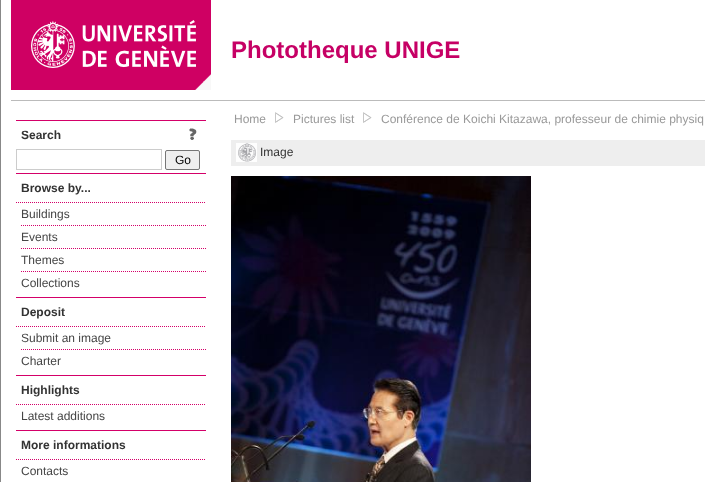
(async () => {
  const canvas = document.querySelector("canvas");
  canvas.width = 705;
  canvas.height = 482;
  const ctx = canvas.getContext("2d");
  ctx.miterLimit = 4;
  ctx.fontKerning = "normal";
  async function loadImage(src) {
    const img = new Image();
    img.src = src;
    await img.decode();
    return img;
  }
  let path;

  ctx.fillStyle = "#ffffff";
  ctx.fillRect(0, 0, 705, 482);
  ctx.fillStyle = "#888888";
  ctx.fillRect(0, 0, 1, 482);
  ctx.fillStyle = "#cf0063";
  ctx.fillRect(11, 0, 200, 90);
  ctx.drawImage(await loadImage("img/1.png"), 195, 74, 16, 16);
  ctx.drawImage(await loadImage("img/2.png"), 31, 20, 165, 48);
  ctx.fillStyle = "#bbbbbb";
  ctx.fillRect(11, 100, 694, 1);
  ctx.fillStyle = "#d40069";
  ctx.fillRect(16, 120, 190, 1);
  ctx.drawImage(await loadImage("img/3.png"), 189, 128, 8, 12);
  ctx.strokeStyle = "#cccccc";
  ctx.strokeRect(16.5, 149.5, 145, 20);
  ctx.fillStyle = "#efefef";
  ctx.beginPath();
  ctx.roundRect(165.5, 150.5, 34, 19, 1.5);
  ctx.fill();
  ctx.strokeStyle = "#767676";
  ctx.stroke();
  ctx.fillStyle = "#d40069";
  ctx.fillRect(16, 173, 190, 1);
  path = new Path2D("M16 202.5H206");
  ctx.strokeStyle = "#d40069";
  ctx.setLineDash([1, 1]);
  ctx.stroke(path);
  path = new Path2D("M21 225.5H206");
  ctx.stroke(path);
  path = new Path2D("M21 248.5H206");
  ctx.stroke(path);
  path = new Path2D("M21 271.5H206");
  ctx.stroke(path);
  ctx.fillRect(16, 297, 190, 1);
  path = new Path2D("M16 326.5H206");
  ctx.stroke(path);
  path = new Path2D("M21 349.5H206");
  ctx.stroke(path);
  ctx.fillRect(16, 375, 190, 1);
  path = new Path2D("M16 404.5H206");
  ctx.stroke(path);
  ctx.fillRect(16, 430, 190, 1);
  path = new Path2D("M16 459.5H206");
  ctx.stroke(path);
  ctx.drawImage(await loadImage("img/4.png"), 275, 112, 9, 11);
  ctx.drawImage(await loadImage("img/4.png"), 363, 112, 9, 11);
  ctx.fillStyle = "#eeeeee";
  ctx.fillRect(231, 140, 474, 26);
  ctx.drawImage(await loadImage("img/5.png"), 236, 143, 21, 19);
  ctx.drawImage(await loadImage("img/6.png"), 231, 176, 300, 306);
  ctx.font = "bold 24px Liberation Sans";
  ctx.fillStyle = "#c60065";
  ctx.fillText("Phototheque UNIGE", 231, 58);
  ctx.font = "bold 12px Liberation Sans";
  ctx.fillStyle = "#333333";
  ctx.fillText("Search", 21, 139);
  ctx.font = "12px Liberation Sans";
  ctx.fillStyle = "#000000";
  ctx.fillText("Go", 175, 164);
  ctx.font = "bold 12px Liberation Sans";
  ctx.fillStyle = "#333333";
  ctx.fillText("Browse by...", 21, 192);
  ctx.font = "12px Liberation Sans";
  ctx.fillStyle = "#454545";
  for (const [text, x, y] of [
    ["Buildings", 21, 218],
    ["Events", 21, 241],
    ["Themes", 21, 264],
    ["Collections", 21, 287],
  ]) {
    ctx.fillText(text, x, y);
  }
  ctx.font = "bold 12px Liberation Sans";
  ctx.fillStyle = "#333333";
  ctx.fillText("Deposit", 21, 316);
  ctx.font = "12px Liberation Sans";
  ctx.fillStyle = "#454545";
  ctx.fillText("Submit an image", 21, 342);
  ctx.fillText("Charter", 21, 365);
  ctx.font = "bold 12px Liberation Sans";
  ctx.fillStyle = "#333333";
  ctx.fillText("Highlights", 21, 394);
  ctx.font = "12px Liberation Sans";
  ctx.fillStyle = "#454545";
  ctx.fillText("Latest additions", 21, 420);
  ctx.font = "bold 12px Liberation Sans";
  ctx.fillStyle = "#333333";
  ctx.fillText("More informations", 21, 449);
  ctx.font = "12px Liberation Sans";
  ctx.fillStyle = "#454545";
  ctx.fillText("Contacts", 21, 475);
  ctx.fillStyle = "#999999";
  for (const [text, x, y] of [
    ["Home", 234, 123],
    ["Pictures list", 293, 123],
    ["Conférence de Koichi Kitazawa, professeur de chimie physiq", 381, 123],
  ]) {
    ctx.fillText(text, x, y);
  }
  ctx.fillStyle = "#333333";
  ctx.fillText("Image", 260, 156);
})();
